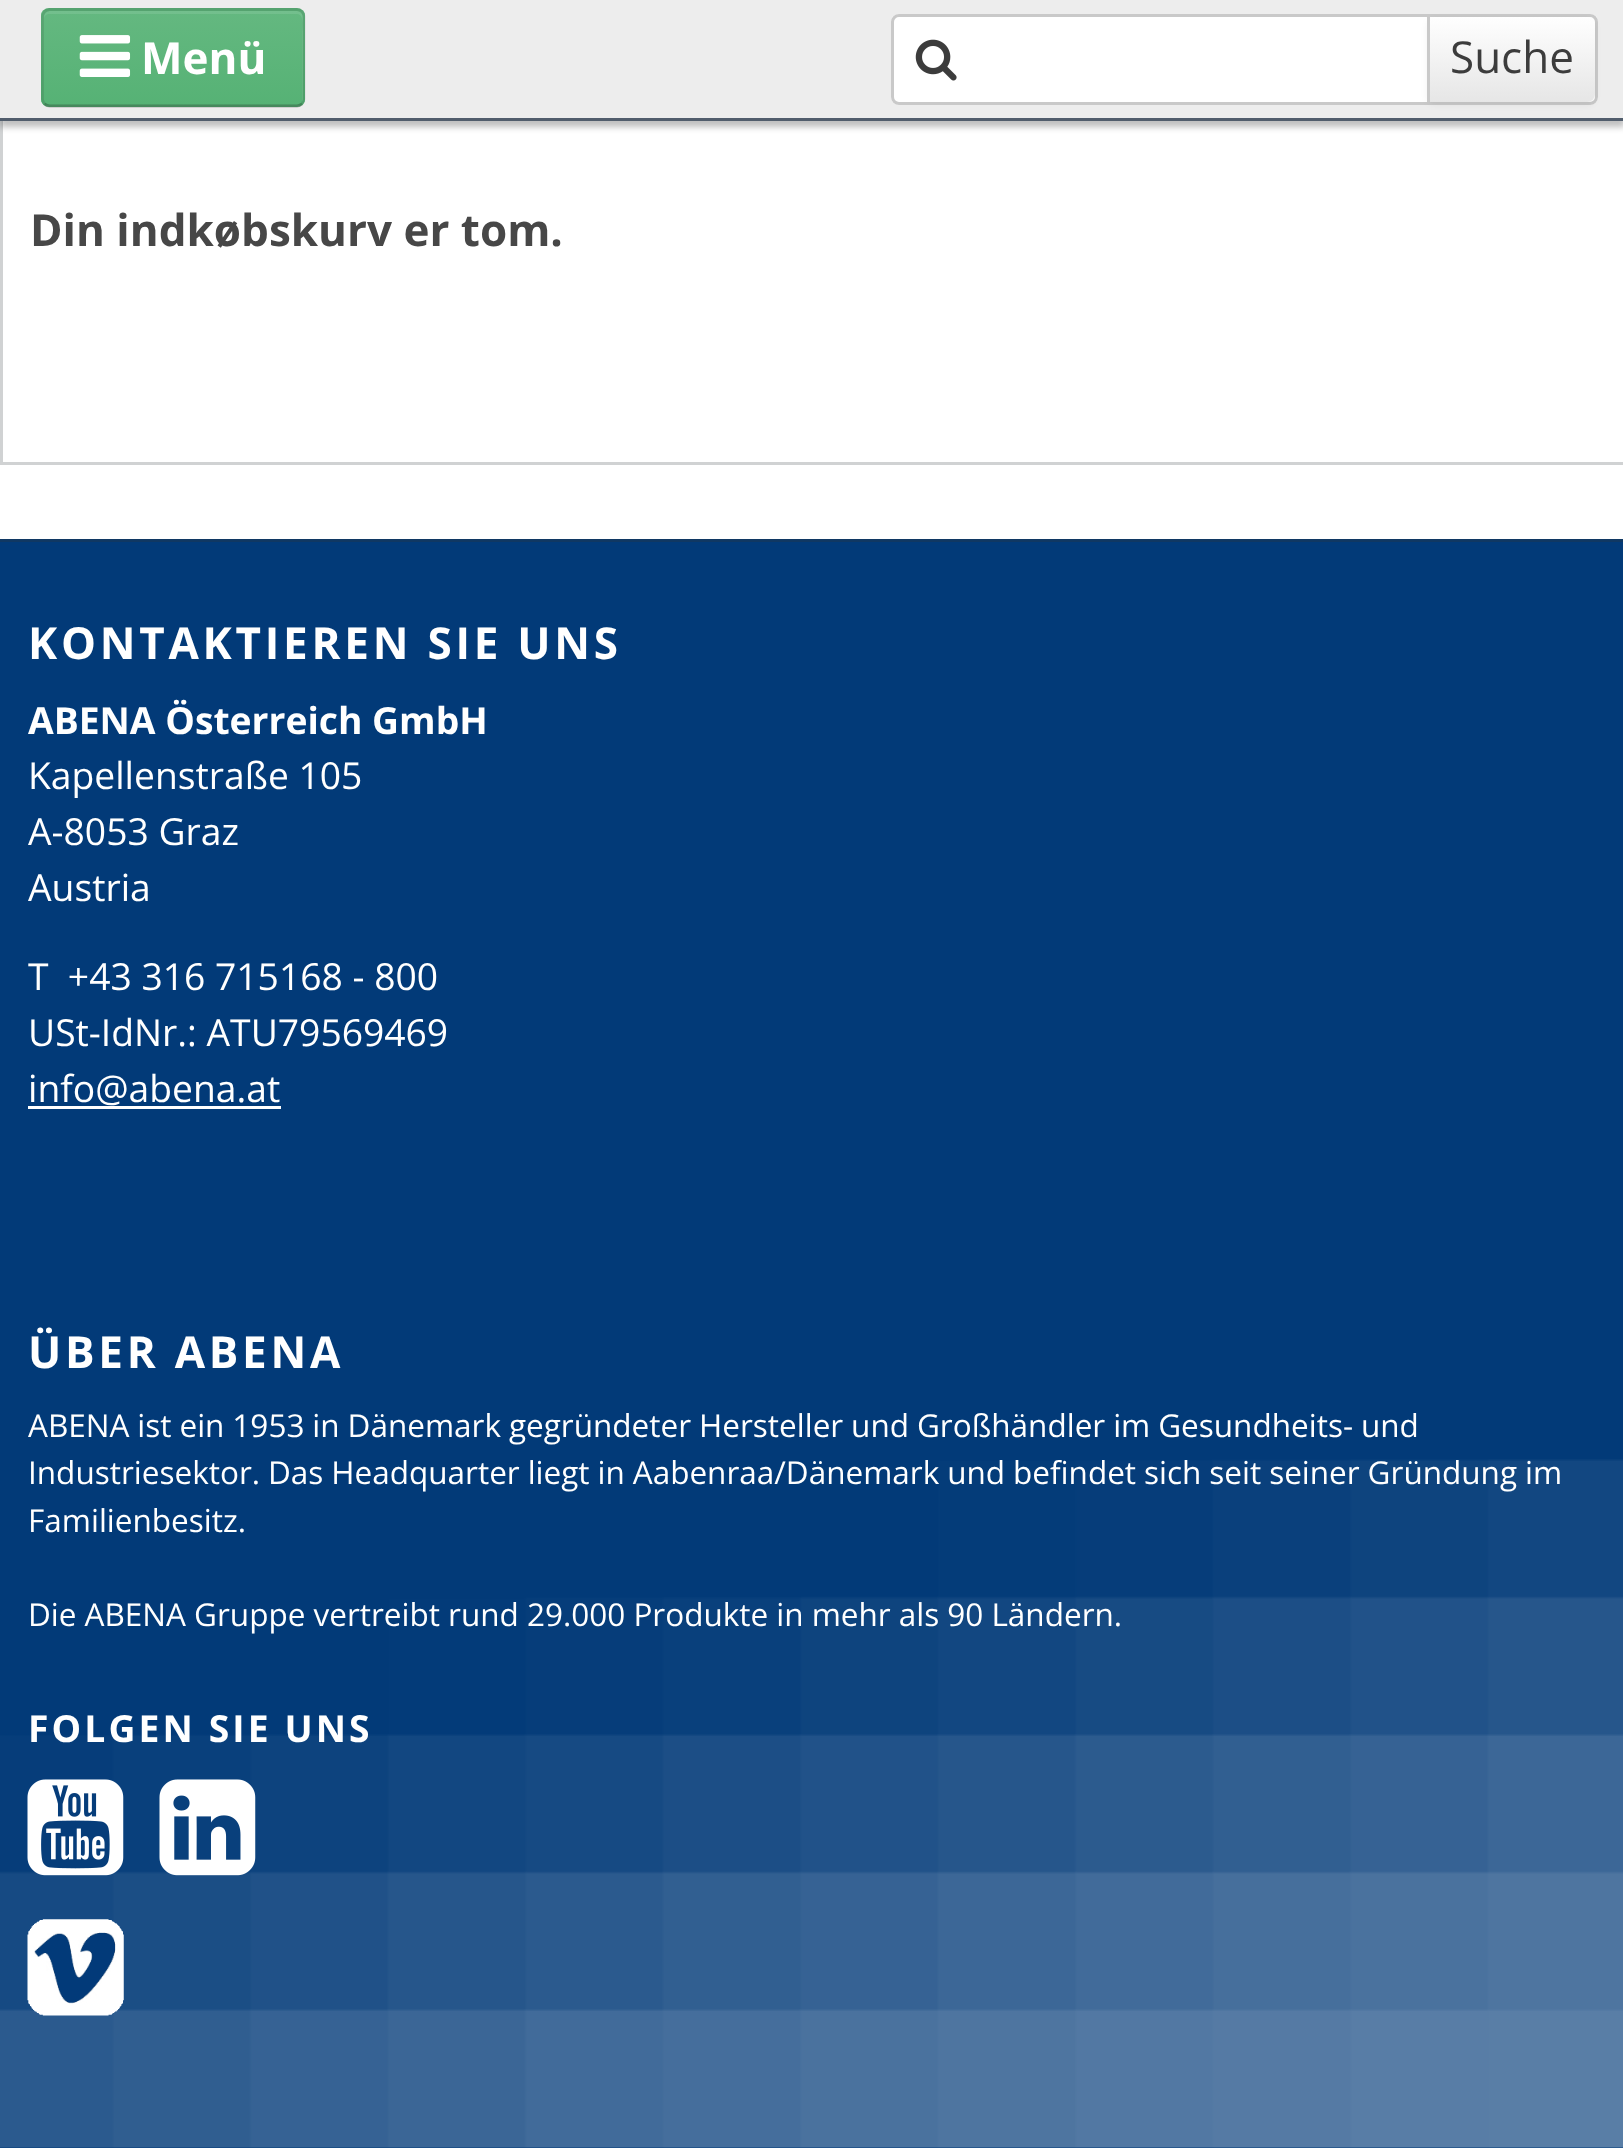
(async () => {
  const canvas = document.querySelector("canvas");
  canvas.width = 1623;
  canvas.height = 2148;
  const ctx = canvas.getContext("2d");
  ctx.miterLimit = 4;
  ctx.fontKerning = "normal";
  async function loadImage(src) {
    const img = new Image();
    img.src = src;
    await img.decode();
    return img;
  }
  let gradient, path;

  ctx.fillStyle = "#ffffff";
  ctx.fillRect(0, 0, 1623, 2148);
  ctx.fillStyle = "#d0d2d3";
  ctx.fillRect(0, 462, 1623, 3);
  ctx.fillRect(0, 121, 3, 344);
  ctx.fillStyle = "rgba(0, 0, 0, 0.25)";
  ctx.filter = "blur(3px)";
  ctx.beginPath();
  ctx.rect(0, 6, 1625, 121);
  ctx.fill();
  ctx.filter = "none";
  ctx.fillStyle = "#ededed";
  ctx.fillRect(0, 0, 1623, 118);
  ctx.fillStyle = "#515d6c";
  ctx.fillRect(0, 118, 1623, 3);
  ctx.fillStyle = "#5fb67c";
  ctx.beginPath();
  ctx.roundRect(41, 8, 264, 99, 8);
  ctx.fill();
  ctx.save();
  ctx.beginPath();
  ctx.roundRect(41, 8, 264, 99, 8);
  ctx.clip();
  gradient = ctx.createLinearGradient(173, 11, 173, 105);
  gradient.addColorStop(0, "#64b880");
  gradient.addColorStop(1, "#56b275");
  ctx.fillStyle = gradient;
  ctx.fillRect(41, 11, 264, 94);
  ctx.restore();
  ctx.fillStyle = "rgba(255, 255, 255, 0.1)";
  path = new Path2D("M50 14H297C305 14 302 30 302 33V102C303 101 303 100 303 99V17C303 14 300 11 297 11H50C47 11 44 14 44 17V19C44 16 46 14 50 14Z");
  ctx.fill(path);
  path = new Path2D("M302 104C300.5 105 299 106 297 106H49.5C47.5 106 46 105 44.5 104");
  ctx.strokeStyle = "rgba(0, 0, 0, 0.25)";
  ctx.lineWidth = 2.8;
  ctx.stroke(path);
  path = new Path2D("M44.5 104C43.5 102.5 42.5 101 42.5 99V16.5C42.5 14.5 43.5 13 44.5 11.5C46 10.5 47.5 9.5 49.5 9.5H297C299 9.5 300.5 10.5 302 11.5C303 13 304 14.5 304 16.5V99C304 101 303 102.5 302 104");
  ctx.strokeStyle = "rgba(0, 0, 0, 0.1)";
  ctx.stroke(path);
  ctx.drawImage(await loadImage("img/1.png"), 79, 35, 52, 42);
  ctx.fillStyle = "#ffffff";
  ctx.beginPath();
  ctx.roundRect(891, 14, 707, 91, 8);
  ctx.fill();
  ctx.drawImage(await loadImage("img/2.png"), 915, 39, 42, 42);
  ctx.beginPath();
  ctx.roundRect(892.5, 15.5, 704, 88, 6.5);
  ctx.strokeStyle = "#c9c9c9";
  ctx.lineWidth = 3;
  ctx.stroke();
  ctx.fillStyle = "rgba(0, 0, 0, 0.05)";
  ctx.filter = "blur(3px)";
  ctx.beginPath();
  ctx.roundRect(1427, 19, 168, 86, 8);
  ctx.fill();
  ctx.filter = "none";
  gradient = ctx.createLinearGradient(1513, 16, 1513, 102);
  gradient.addColorStop(0, "#ffffff");
  gradient.addColorStop(1, "#e6e6e6");
  ctx.fillStyle = gradient;
  ctx.beginPath();
  ctx.roundRect(1427, 17, 168, 85, [0, 8, 8, 0]);
  ctx.fill();
  ctx.fillStyle = "#c9c9c9";
  ctx.fillRect(1427, 17, 3, 85);
  ctx.fillStyle = "#023a78";
  ctx.fillRect(0, 542, 1623, 1606);
  ctx.drawImage(await loadImage("img/3.png"), 0, 1459, 1623, 689);
  ctx.fillStyle = "#103863";
  ctx.fillRect(0, 539, 1623, 3);
  ctx.fillStyle = "#ffffff";
  ctx.fillRect(28, 1106, 253, 3);
  ctx.drawImage(await loadImage("img/4.png"), 27, 1779, 97, 97);
  ctx.drawImage(await loadImage("img/5.png"), 159, 1779, 97, 97);
  ctx.drawImage(await loadImage("img/6.png"), 27, 1919, 97, 97);
  ctx.font = "bold 44px Open Sans";
  ctx.fillText("Menü", 141, 74);
  ctx.font = "44px Open Sans";
  ctx.fillStyle = "#3c3c3c";
  ctx.fillText("Suche", 1450, 73);
  ctx.font = "bold 44px Open Sans";
  ctx.fillStyle = "#474747";
  ctx.fillText("Din indkøbskurv er tom.", 30, 246);
  ctx.letterSpacing = "3.75px";
  ctx.fillStyle = "#ffffff";
  ctx.fillText("KONTAKTIEREN SIE UNS", 28, 659);
  ctx.letterSpacing = "0px";
  ctx.font = "bold 37.25px Open Sans";
  ctx.fillText("ABENA Österreich GmbH", 28, 734);
  ctx.font = "37.25px Open Sans";
  for (const [text, x, y] of [
    ["Kapellenstraße 105", 28, 789],
    ["A-8053 Graz", 28, 845],
    ["Austria", 28, 901],
    ["T  +43 316 715168 - 800", 28, 990],
    ["USt-IdNr.: ATU79569469", 28, 1046],
    ["info@abena.at", 28, 1102],
  ]) {
    ctx.fillText(text, x, y);
  }
  ctx.letterSpacing = "3.75px";
  ctx.font = "bold 44px Open Sans";
  ctx.fillText("ÜBER ABENA", 28, 1368);
  ctx.letterSpacing = "0px";
  ctx.wordSpacing = "-0.25px";
  ctx.font = "31.5px Open Sans";
  ctx.fillText("ABENA ist ein 1953 in Dänemark gegründeter Hersteller und Großhändler im Gesundheits- und", 28, 1437);
  ctx.fillText("Industriesektor. Das Headquarter liegt in Aabenraa/Dänemark und befindet sich seit seiner Gründung im", 28, 1484);
  ctx.wordSpacing = "0px";
  ctx.fillText("Familienbesitz.", 28, 1532);
  ctx.wordSpacing = "-0.1px";
  ctx.fillText("Die ABENA Gruppe vertreibt rund 29.000 Produkte in mehr als 90 Ländern.", 28, 1626);
  ctx.letterSpacing = "3.1px";
  ctx.wordSpacing = "0px";
  ctx.font = "bold 37.25px Open Sans";
  ctx.fillText("FOLGEN SIE UNS", 28, 1742);
})();
